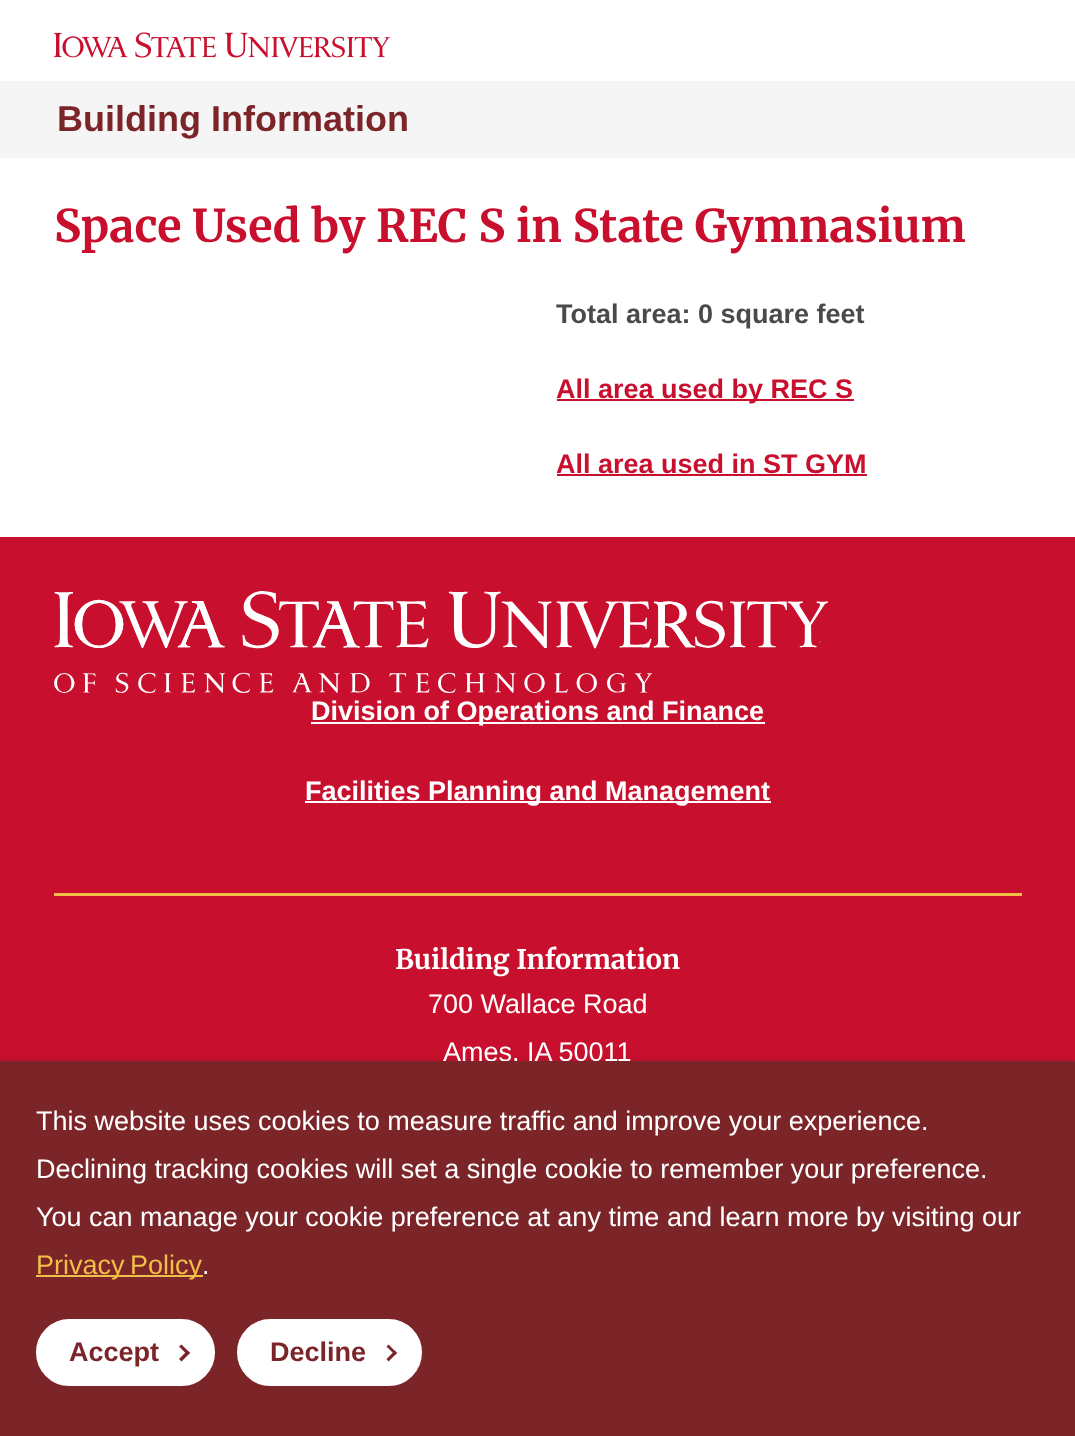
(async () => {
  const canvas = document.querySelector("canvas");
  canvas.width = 1075;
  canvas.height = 1436;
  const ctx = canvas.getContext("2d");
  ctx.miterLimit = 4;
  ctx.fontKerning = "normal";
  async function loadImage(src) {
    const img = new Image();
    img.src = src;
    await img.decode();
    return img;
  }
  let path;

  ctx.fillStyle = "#ffffff";
  ctx.fillRect(0, 0, 1075, 1436);
  ctx.drawImage(await loadImage("img/1.png"), 54, 32, 336, 26);
  for (const [x, y, w, h, color] of [
    [0, 81, 1075, 77, "#f5f5f5"],
    [557, 399, 297, 2, "#c8102e"],
    [557, 474, 310, 2, "#c8102e"],
    [0, 537, 1075, 524, "#c8102e"],
  ]) {
    ctx.fillStyle = color;
    ctx.fillRect(x, y, w, h);
  }
  ctx.drawImage(await loadImage("img/2.png"), 54, 591, 774, 102);
  for (const [x, y, w, h, color] of [
    [54, 893, 968, 3, "#f1be48"],
    [311, 722, 454, 2, "#ffffff"],
    [305, 801, 466, 2, "#ffffff"],
  ]) {
    ctx.fillStyle = color;
    ctx.fillRect(x, y, w, h);
  }
  ctx.fillStyle = "rgba(0, 0, 0, 0.3)";
  ctx.filter = "blur(7.5px)";
  ctx.beginPath();
  ctx.rect(0, 1068, 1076, 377);
  ctx.fill();
  ctx.filter = "none";
  ctx.font = "bold 36px Liberation Sans";
  ctx.fillStyle = "#7c2529";
  ctx.fillText("Building Information", 57, 131);
  ctx.font = "bold 45px Merriweather";
  ctx.fillStyle = "#c8102e";
  ctx.fillText("Space Used by REC S in State Gymnasium", 54, 242);
  ctx.font = "bold 27px Liberation Sans";
  ctx.fillStyle = "#4a4a4a";
  ctx.fillText("Total area: 0 square feet", 556, 323);
  ctx.fillStyle = "#c8102e";
  ctx.fillText("All area used by REC S", 556, 398);
  ctx.fillText("All area used in ST GYM", 556, 473);
  ctx.fillStyle = "#ffffff";
  ctx.fillText("Division of Operations and Finance", 311, 720);
  ctx.fillText("Facilities Planning and Management", 305, 800);
  ctx.font = "bold 27px Merriweather";
  ctx.fillText("Building Information", 395, 969);
  ctx.font = "27px Liberation Sans";
  ctx.fillText("700 Wallace Road", 428, 1013);
  ctx.fillText("Ames, IA 50011", 443, 1061);
  ctx.fillStyle = "#7c2529";
  ctx.fillRect(0, 1061, 1075, 375);
  ctx.fillStyle = "#ffffff";
  for (const [text, x, y] of [
    ["This website uses cookies to measure traffic and improve your experience.", 36, 1130],
    ["Declining tracking cookies will set a single cookie to remember your preference.", 36, 1178],
    ["You can manage your cookie preference at any time and learn more by visiting our", 36, 1226],
  ]) {
    ctx.fillText(text, x, y);
  }
  ctx.fillStyle = "#f1be48";
  ctx.fillRect(36, 1275, 167, 2);
  ctx.wordSpacing = "-2px";
  ctx.fillText("Privacy Policy", 36, 1274);
  ctx.wordSpacing = "0px";
  ctx.fillStyle = "#ffffff";
  ctx.fillText(".", 202, 1274);
  ctx.beginPath();
  ctx.roundRect(37.5, 1320.5, 176, 64, 32);
  ctx.fill();
  ctx.strokeStyle = "#ffffff";
  ctx.lineWidth = 3;
  ctx.stroke();
  ctx.font = "bold 27px Liberation Sans";
  ctx.fillStyle = "#7c2529";
  ctx.fillText("Accept", 69, 1361);
  path = new Path2D("M179 1359L187.5 1350.5L190 1353L181.5 1361.5Z");
  ctx.fill(path);
  path = new Path2D("M181.5 1344.5L190 1353L187.5 1355L179 1346.5Z");
  ctx.fill(path);
  ctx.fillStyle = "#ffffff";
  ctx.beginPath();
  ctx.roundRect(238.5, 1320.5, 182, 64, 32);
  ctx.fill();
  ctx.stroke();
  ctx.fillStyle = "#7c2529";
  ctx.fillText("Decline", 270, 1361);
  path = new Path2D("M386.5 1359L395 1350.5L397 1353L388.5 1361.5Z");
  ctx.fill(path);
  path = new Path2D("M388.5 1344.5L397 1353L395 1355L386.5 1346.5Z");
  ctx.fill(path);
})();
